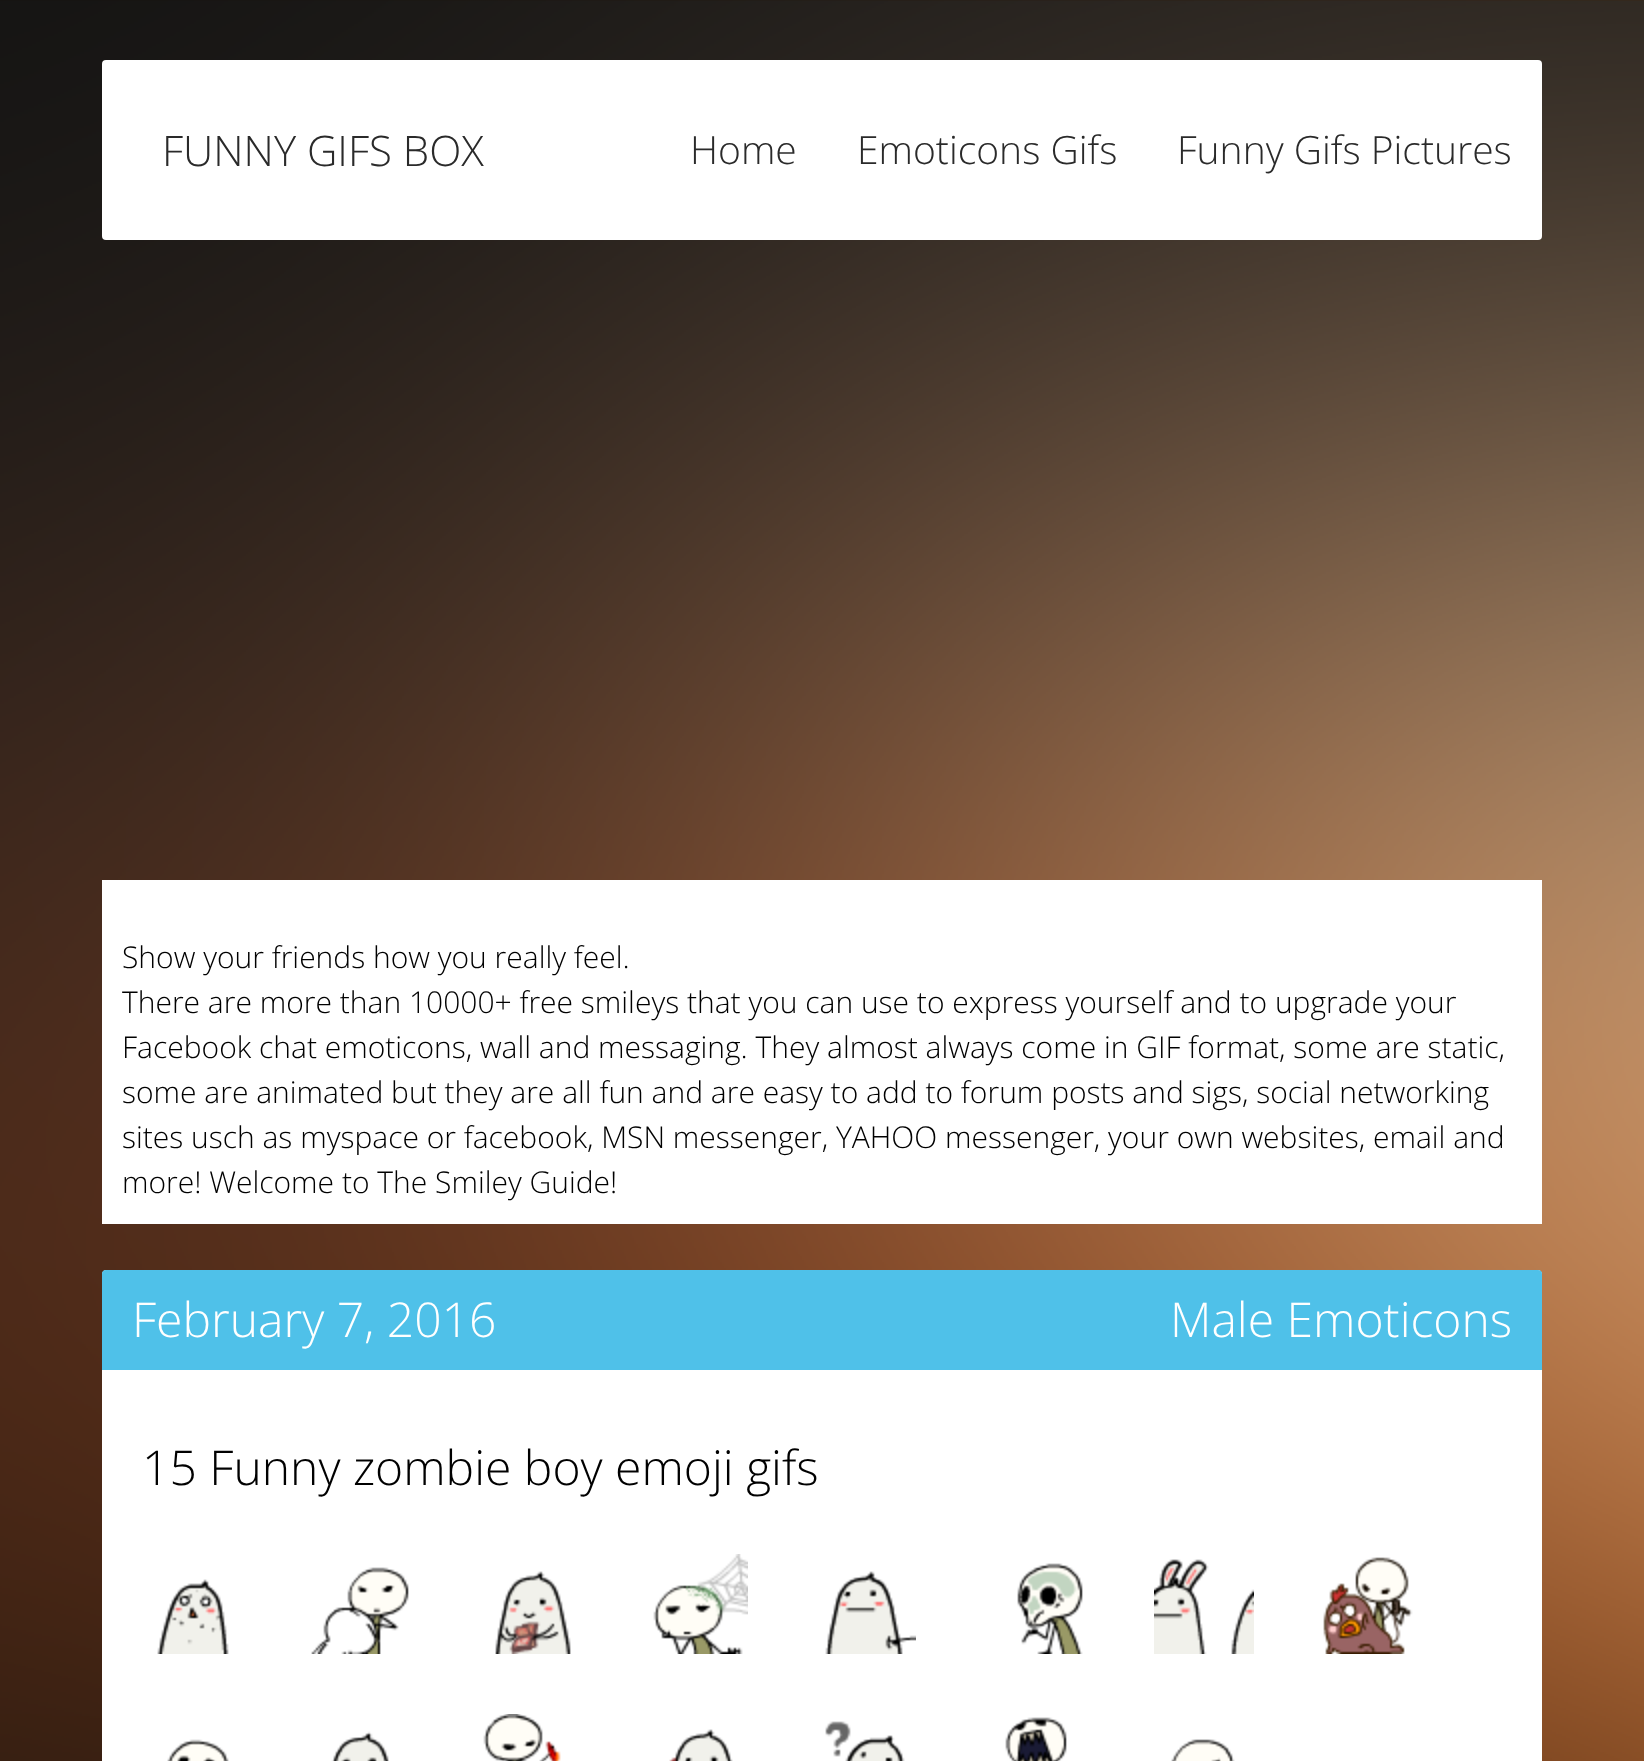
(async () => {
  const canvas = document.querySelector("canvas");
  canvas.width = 1644;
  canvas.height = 1761;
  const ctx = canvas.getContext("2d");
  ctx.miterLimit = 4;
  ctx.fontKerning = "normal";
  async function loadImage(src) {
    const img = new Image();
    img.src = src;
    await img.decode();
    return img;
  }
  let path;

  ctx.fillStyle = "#ffffff";
  ctx.fillRect(0, 0, 1644, 1761);
  ctx.drawImage(await loadImage("img/1.png"), 0, 0, 1644, 1761);
  ctx.beginPath();
  ctx.roundRect(102, 60, 1440, 180, 4);
  ctx.fill();
  ctx.fillRect(102, 880, 1440, 344);
  path = new Path2D("M106 1270H1538C1540 1270 1542 1272 1542 1274V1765H102V1274C102 1272 104 1270 106 1270Z");
  ctx.fill(path);
  ctx.fillStyle = "#4fc1e9";
  ctx.beginPath();
  ctx.roundRect(102, 1270, 1440, 100, [4, 4, 0, 0]);
  ctx.fill();
  ctx.drawImage(await loadImage("img/2.png"), 157, 1579, 72, 75);
  ctx.drawImage(await loadImage("img/3.png"), 311, 1567, 98, 87);
  ctx.drawImage(await loadImage("img/4.png"), 495, 1571, 76, 83);
  ctx.drawImage(await loadImage("img/5.png"), 653, 1554, 95, 100);
  ctx.drawImage(await loadImage("img/6.png"), 825, 1571, 91, 83);
  ctx.drawImage(await loadImage("img/7.png"), 1017, 1563, 66, 91);
  ctx.drawImage(await loadImage("img/8.png"), 1154, 1559, 100, 95);
  ctx.drawImage(await loadImage("img/9.png"), 1323, 1557, 90, 97);
  ctx.drawImage(await loadImage("img/10.png"), 167, 1739, 62, 22);
  ctx.drawImage(await loadImage("img/11.png"), 331, 1731, 58, 30);
  ctx.drawImage(await loadImage("img/12.png"), 483, 1714, 78, 47);
  ctx.drawImage(await loadImage("img/13.png"), 669, 1729, 64, 32);
  ctx.drawImage(await loadImage("img/14.png"), 825, 1721, 80, 40);
  ctx.drawImage(await loadImage("img/15.png"), 1005, 1717, 62, 44);
  ctx.drawImage(await loadImage("img/16.png"), 1171, 1739, 64, 22);
  ctx.font = "300 42px Open Sans";
  ctx.fillStyle = "#2a2a2a";
  ctx.fillText("FUNNY GIFS BOX", 162, 166);
  ctx.font = "300 39px Open Sans";
  for (const [text, x, y] of [
    ["Home", 690, 164],
    ["Emoticons Gifs", 857, 164],
    ["Funny Gifs Pictures", 1177, 164],
  ]) {
    ctx.fillText(text, x, y);
  }
  ctx.font = "300 30px Open Sans";
  ctx.fillStyle = "#000000";
  for (const [text, x, y] of [
    ["Show your friends how you really feel.", 122, 968],
    ["There are more than 10000+ free smileys that you can use to express yourself and to upgrade your", 122, 1013],
    ["Facebook chat emoticons, wall and messaging. They almost always come in GIF format, some are static,", 122, 1058],
    ["some are animated but they are all fun and are easy to add to forum posts and sigs, social networking", 122, 1103],
    ["sites usch as myspace or facebook, MSN messenger, YAHOO messenger, your own websites, email and", 122, 1148],
    ["more! Welcome to The Smiley Guide!", 122, 1193],
  ]) {
    ctx.fillText(text, x, y);
  }
  ctx.font = "300 48px Open Sans";
  ctx.fillStyle = "#ffffff";
  ctx.fillText("February 7, 2016", 132, 1337);
  ctx.fillText("Male Emoticons", 1170, 1337);
  ctx.fillStyle = "#000000";
  ctx.fillText("15 Funny zombie boy emoji gifs", 142, 1485);
})();
